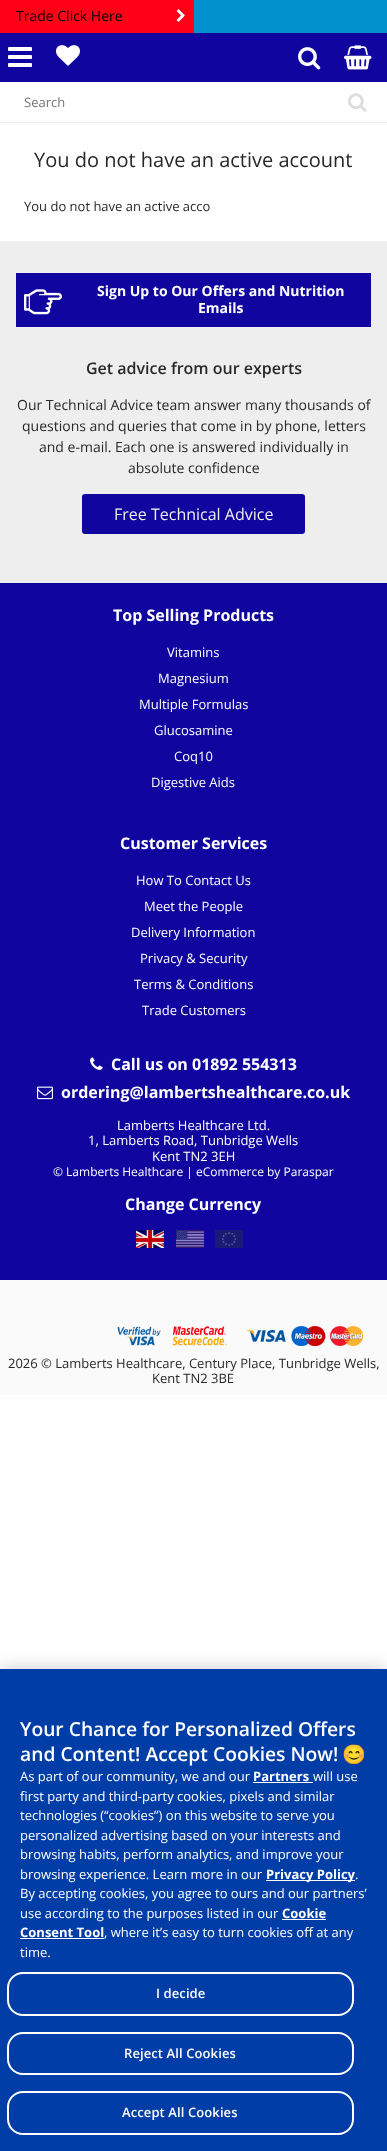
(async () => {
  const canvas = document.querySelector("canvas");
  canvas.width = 387;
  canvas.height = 2151;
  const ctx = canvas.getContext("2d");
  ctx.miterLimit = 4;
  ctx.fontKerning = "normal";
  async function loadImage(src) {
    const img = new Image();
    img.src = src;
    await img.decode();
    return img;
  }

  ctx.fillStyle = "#ffffff";
  ctx.fillRect(0, 0, 387, 2151);
  for (const [x, y, w, h, color] of [
    [0, 33, 387, 49, "#10069f"],
    [194, 0, 193, 33, "#0090cc"],
    [0, 0, 194, 33, "#ff0017"],
  ]) {
    ctx.fillStyle = color;
    ctx.fillRect(x, y, w, h);
  }
  ctx.drawImage(await loadImage("img/1.png"), 176, 9, 9, 13);
  ctx.drawImage(await loadImage("img/2.png"), 8, 47, 24, 20);
  ctx.drawImage(await loadImage("img/3.png"), 56, 45, 24, 21);
  ctx.drawImage(await loadImage("img/4.png"), 298, 47, 23, 23);
  ctx.drawImage(await loadImage("img/5.png"), 344, 45, 28, 25);
  ctx.drawImage(await loadImage("img/6.png"), 348, 93, 19, 19);
  for (const [x, y, w, h, color] of [
    [0, 122, 387, 1, "#eeeeee"],
    [0, 241, 387, 342, "#eeeeee"],
    [16, 273, 355, 54, "#10069f"],
  ]) {
    ctx.fillStyle = color;
    ctx.fillRect(x, y, w, h);
  }
  ctx.drawImage(await loadImage("img/7.png"), 24, 289, 38, 26);
  ctx.beginPath();
  ctx.roundRect(82, 494, 223, 40, 3);
  ctx.fill();
  ctx.fillRect(0, 583, 387, 697);
  ctx.drawImage(await loadImage("img/8.png"), 90, 1057, 13, 13);
  ctx.drawImage(await loadImage("img/9.png"), 37, 1086, 16, 14);
  ctx.drawImage(await loadImage("img/10.png"), 136, 1230, 28, 18);
  ctx.drawImage(await loadImage("img/11.png"), 176, 1230, 28, 18);
  ctx.drawImage(await loadImage("img/12.png"), 215, 1230, 28, 18);
  ctx.fillStyle = "#fafafa";
  ctx.fillRect(0, 1280, 387, 115);
  ctx.drawImage(await loadImage("img/13.png"), 117, 1326, 246, 20);
  ctx.fillStyle = "rgba(0, 0, 0, 0.2)";
  ctx.filter = "blur(9px)";
  ctx.beginPath();
  ctx.rect(0, 1669, 387, 482);
  ctx.fill();
  ctx.filter = "none";
  for (const [x, y, w, h, color] of [
    [0, 1669, 387, 482, "#003da7"],
    [253, 1782, 60, 1, "#ffffff"],
    [266, 1880, 89, 1, "#ffffff"],
    [282, 1919, 44, 1, "#ffffff"],
    [20, 1938, 84, 1, "#ffffff"],
  ]) {
    ctx.fillStyle = color;
    ctx.fillRect(x, y, w, h);
  }
  ctx.beginPath();
  ctx.roundRect(8, 1973, 345, 42, 15);
  ctx.strokeStyle = "#ffffff";
  ctx.lineWidth = 2;
  ctx.stroke();
  ctx.beginPath();
  ctx.roundRect(8, 2033, 345, 41, 15);
  ctx.stroke();
  ctx.beginPath();
  ctx.roundRect(8, 2092, 345, 42, 15);
  ctx.stroke();
  ctx.font = "14px Open Sans";
  ctx.fillStyle = "#000000";
  ctx.fillText("Trade Click Here", 16, 21);
  ctx.font = "13px Open Sans";
  ctx.fillStyle = "#757575";
  ctx.fillText("Search", 24, 107);
  ctx.font = "20px Open Sans";
  ctx.fillStyle = "#282828";
  ctx.fillText("You do not have an active account", 34, 167);
  ctx.font = "13px Open Sans";
  ctx.fillText("You do not have an active acco", 24, 211);
  ctx.font = "bold 14px Open Sans";
  ctx.fillStyle = "#ffffff";
  ctx.fillText("Sign Up to Our Offers and Nutrition", 97, 296);
  ctx.fillText("Emails", 198, 313);
  ctx.font = "600 16px Open Sans";
  ctx.fillStyle = "#282828";
  ctx.fillText("Get advice from our experts", 86, 374);
  ctx.font = "14px Open Sans";
  for (const [text, x, y] of [
    ["Our Technical Advice team answer many thousands of", 17, 410],
    ["questions and queries that come in by phone, letters", 22, 431],
    ["and e-mail. Each one is answered individually in", 39, 452],
    ["absolute confidence", 128, 473],
  ]) {
    ctx.fillText(text, x, y);
  }
  ctx.font = "16px Open Sans";
  ctx.fillStyle = "#eeeeee";
  ctx.fillText("Free Technical Advice", 114, 520);
  ctx.font = "bold 16px Open Sans";
  ctx.fillStyle = "#ffffff";
  ctx.fillText("Top Selling Products", 113, 621);
  ctx.font = "13px Open Sans";
  for (const [text, x, y] of [
    ["Vitamins", 167, 657],
    ["Magnesium", 158, 683],
    ["Multiple Formulas", 139, 709],
    ["Glucosamine", 154, 735],
    ["Coq10", 174, 761],
    ["Digestive Aids", 151, 787],
  ]) {
    ctx.fillText(text, x, y);
  }
  ctx.font = "bold 16px Open Sans";
  ctx.fillText("Customer Services", 120, 849);
  ctx.font = "13px Open Sans";
  for (const [text, x, y] of [
    ["How To Contact Us", 136, 885],
    ["Meet the People", 144, 911],
    ["Delivery Information", 131, 937],
    ["Privacy & Security", 140, 963],
    ["Terms & Conditions", 134, 989],
    ["Trade Customers", 142, 1015],
  ]) {
    ctx.fillText(text, x, y);
  }
  ctx.font = "bold 16px Open Sans";
  ctx.fillText("Call us on 01892 554313", 111, 1070);
  ctx.fillText("ordering@lambertshealthcare.co.uk", 61, 1098);
  ctx.font = "13px Open Sans";
  for (const [text, x, y] of [
    ["Lamberts Healthcare Ltd.", 117, 1130],
    ["1, Lamberts Road, Tunbridge Wells", 88, 1145],
    ["Kent TN2 3EH", 152, 1161],
  ]) {
    ctx.fillText(text, x, y);
  }
  ctx.font = "12px Open Sans";
  ctx.fillText("© Lamberts Healthcare | eCommerce by Paraspar", 53, 1176);
  ctx.font = "bold 16px Open Sans";
  ctx.fillText("Change Currency", 125, 1210);
  ctx.font = "13px Open Sans";
  ctx.fillStyle = "#282828";
  ctx.fillText("2026 © Lamberts Healthcare, Century Place, Tunbridge Wells,", 8, 1368);
  ctx.fillText("Kent TN2 3BE", 152, 1383);
  ctx.font = "600 19.25px Open Sans";
  ctx.fillStyle = "#ffffff";
  ctx.fillText("Your Chance for Personalized Offers", 20, 1736);
  ctx.fillText("and Content! Accept Cookies Now!", 20, 1761);
  ctx.font = "bold 19.25px Noto Color Emoji";
  ctx.fillText("😊", 342, 1761);
  ctx.font = "13px Open Sans";
  ctx.fillText("As part of our community, we and our", 20, 1781);
  ctx.font = "bold 13px Open Sans";
  ctx.fillText("Partners", 253, 1781);
  ctx.font = "13px Open Sans";
  for (const [text, x, y] of [
    ["will use", 313, 1781],
    ["first party and third-party cookies, pixels and similar", 20, 1801],
    ["technologies (“cookies”) on this website to serve you", 20, 1820],
    ["personalized advertising based on your interests and", 20, 1840],
    ["browsing habits, perform analytics, and improve your", 20, 1859],
    ["browsing experience. Learn more in our", 20, 1879],
  ]) {
    ctx.fillText(text, x, y);
  }
  ctx.font = "bold 13px Open Sans";
  ctx.fillText("Privacy Policy", 266, 1879);
  ctx.font = "13px Open Sans";
  for (const [text, x, y] of [
    [".", 355, 1879],
    ["By accepting cookies, you agree to ours and our partners’", 20, 1898],
    ["use according to the purposes listed in our", 20, 1918],
  ]) {
    ctx.fillText(text, x, y);
  }
  ctx.font = "bold 13px Open Sans";
  ctx.fillText("Cookie", 282, 1918);
  ctx.fillText("Consent Tool", 20, 1937);
  ctx.font = "13px Open Sans";
  ctx.fillText(", where it’s easy to turn cookies off at any", 104, 1937);
  ctx.fillText("time.", 20, 1957);
  ctx.letterSpacing = "0.1px";
  ctx.font = "600 13px Open Sans";
  for (const [text, x, y] of [
    ["I decide", 156, 1998],
    ["Reject All Cookies", 124, 2058],
    ["Accept All Cookies", 122, 2117],
  ]) {
    ctx.fillText(text, x, y);
  }
})();
